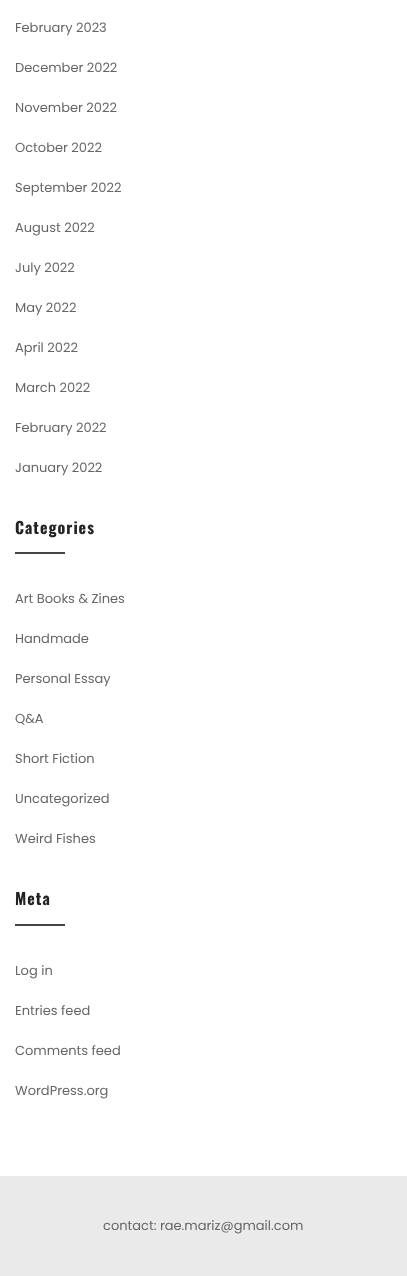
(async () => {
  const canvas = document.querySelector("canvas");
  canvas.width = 407;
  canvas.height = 1276;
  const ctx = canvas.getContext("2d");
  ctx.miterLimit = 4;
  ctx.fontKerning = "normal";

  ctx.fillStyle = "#ffffff";
  ctx.fillRect(0, 0, 407, 1276);
  for (const [x, y, w, h, color] of [
    [15, 552, 50, 2, "#444444"],
    [15, 924, 50, 2, "#444444"],
    [0, 1176, 407, 100, "#eaeaea"],
  ]) {
    ctx.fillStyle = color;
    ctx.fillRect(x, y, w, h);
  }
  ctx.font = "13px Poppins";
  ctx.fillStyle = "#666666";
  for (const [text, x, y] of [
    ["February 2023", 15, 32],
    ["December 2022", 15, 72],
    ["November 2022", 15, 112],
    ["October 2022", 15, 152],
    ["September 2022", 15, 192],
    ["August 2022", 15, 232],
    ["July 2022", 15, 272],
    ["May 2022", 15, 312],
    ["April 2022", 15, 352],
    ["March 2022", 15, 392],
    ["February 2022", 15, 432],
    ["January 2022", 15, 472],
  ]) {
    ctx.fillText(text, x, y);
  }
  ctx.letterSpacing = "1px";
  ctx.font = "bold 16px Oswald";
  ctx.fillStyle = "#222222";
  ctx.fillText("Categories", 15, 534);
  ctx.letterSpacing = "0px";
  ctx.font = "13px Poppins";
  ctx.fillStyle = "#666666";
  for (const [text, x, y] of [
    ["Art Books & Zines", 15, 603],
    ["Handmade", 15, 643],
    ["Personal Essay", 15, 683],
    ["Q&A", 15, 723],
    ["Short Fiction", 15, 763],
    ["Uncategorized", 15, 803],
    ["Weird Fishes", 15, 843],
  ]) {
    ctx.fillText(text, x, y);
  }
  ctx.letterSpacing = "1px";
  ctx.font = "bold 16px Oswald";
  ctx.fillStyle = "#222222";
  ctx.fillText("Meta", 15, 905);
  ctx.letterSpacing = "0px";
  ctx.font = "13px Poppins";
  ctx.fillStyle = "#666666";
  for (const [text, x, y] of [
    ["Log in", 15, 975],
    ["Entries feed", 15, 1015],
    ["Comments feed", 15, 1055],
    ["WordPress.org", 15, 1095],
    ["contact: rae.mariz@gmail.com", 103, 1230],
  ]) {
    ctx.fillText(text, x, y);
  }
})();
